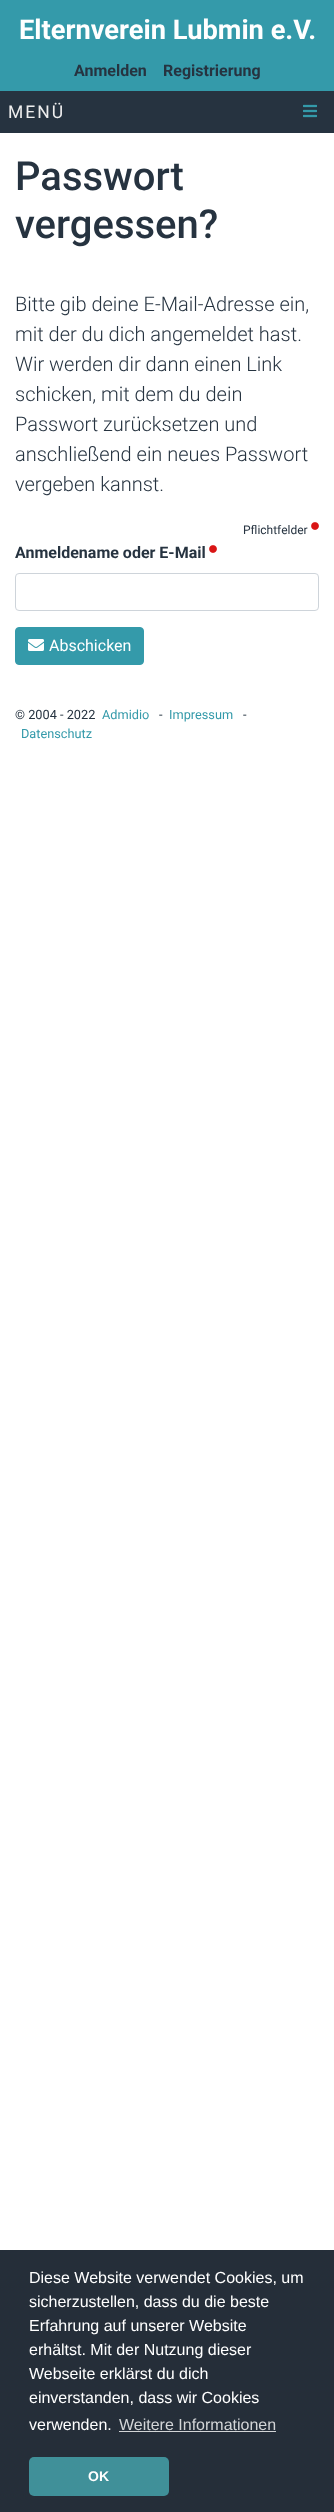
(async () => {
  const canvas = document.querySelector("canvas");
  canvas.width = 334;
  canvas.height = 2512;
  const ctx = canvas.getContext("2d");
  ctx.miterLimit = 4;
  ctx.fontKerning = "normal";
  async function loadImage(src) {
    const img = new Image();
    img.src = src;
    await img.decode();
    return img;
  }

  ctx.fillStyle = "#ffffff";
  ctx.fillRect(0, 0, 334, 2512);
  ctx.fillStyle = "#349aaa";
  ctx.fillRect(0, 0, 334, 91);
  ctx.fillStyle = "#263340";
  ctx.fillRect(0, 91, 334, 42);
  ctx.drawImage(await loadImage("img/1.png"), 303, 104, 14, 14);
  ctx.drawImage(await loadImage("img/2.png"), 311, 522, 8, 8);
  ctx.drawImage(await loadImage("img/2.png"), 209, 545, 8, 8);
  ctx.beginPath();
  ctx.roundRect(15.5, 573.5, 303, 37, 3.5);
  ctx.strokeStyle = "#ced4da";
  ctx.stroke();
  ctx.fillStyle = "#349aaa";
  ctx.beginPath();
  ctx.roundRect(15.5, 627.5, 128, 37, 3.5);
  ctx.fill();
  ctx.strokeStyle = "#349aaa";
  ctx.stroke();
  ctx.drawImage(await loadImage("img/3.png"), 28, 639, 16, 12);
  ctx.fillStyle = "#252e39";
  ctx.fillRect(0, 2250, 334, 262);
  ctx.fillStyle = "#d3d5d7";
  ctx.fillRect(119, 2431, 157, 1);
  ctx.fillStyle = "#409099";
  ctx.beginPath();
  ctx.roundRect(29, 2457, 140, 39, 5);
  ctx.fill();
  ctx.font = "bold 27.25px Roboto";
  ctx.fillStyle = "#ffffff";
  ctx.fillText("Elternverein Lubmin e.V.", 19, 39);
  ctx.font = "bold 16px Roboto";
  ctx.fillStyle = "#263340";
  ctx.fillText("Anmelden", 74, 76);
  ctx.fillText("Registrierung", 163, 76);
  ctx.letterSpacing = "2px";
  ctx.font = "17.5px Roboto";
  ctx.fillStyle = "#eeeeee";
  ctx.fillText("MENÜ", 8, 118);
  ctx.letterSpacing = "0px";
  ctx.font = "500 40px Roboto";
  ctx.fillStyle = "#263340";
  ctx.fillText("Passwort", 15, 190);
  ctx.fillText("vergessen?", 15, 238);
  ctx.font = "300 20px Roboto";
  for (const [text, x, y] of [
    ["Bitte gib deine E-Mail-Adresse ein,", 15, 311],
    ["mit der du dich angemeldet hast.", 15, 341],
    ["Wir werden dir dann einen Link", 15, 371],
    ["schicken, mit dem du dein", 15, 401],
    ["Passwort zurücksetzen und", 15, 431],
    ["anschließend ein neues Passwort", 15, 461],
    ["vergeben kannst.", 15, 491],
  ]) {
    ctx.fillText(text, x, y);
  }
  ctx.font = "12px Roboto";
  ctx.fillText("Pflichtfelder", 243, 534);
  ctx.font = "bold 16px Roboto";
  ctx.fillText("Anmeldename oder E-Mail", 15, 558);
  ctx.font = "16px Roboto";
  ctx.fillStyle = "#ffffff";
  ctx.fillText("Abschicken", 49, 651);
  ctx.font = "12.75px Roboto";
  ctx.fillStyle = "#263340";
  ctx.fillText("© 2004 - 2022", 15, 719);
  ctx.fillStyle = "#349aaa";
  ctx.fillText("Admidio", 102, 719);
  ctx.fillStyle = "#263340";
  ctx.fillText("-", 159, 719);
  ctx.fillStyle = "#349aaa";
  ctx.fillText("Impressum", 169, 719);
  ctx.fillStyle = "#263340";
  ctx.fillText("-", 243, 719);
  ctx.fillStyle = "#349aaa";
  ctx.fillText("Datenschutz", 21, 738);
  ctx.font = "16px Liberation Sans";
  ctx.fillStyle = "#ffffff";
  for (const [text, x, y] of [
    ["Diese Website verwendet Cookies, um", 29, 2283],
    ["sicherzustellen, dass du die beste", 29, 2307],
    ["Erfahrung auf unserer Website", 29, 2331],
    ["erhältst. Mit der Nutzung dieser", 29, 2355],
    ["Webseite erklärst du dich", 29, 2379],
    ["einverstanden, dass wir Cookies", 29, 2403],
    ["verwenden.", 29, 2430],
  ]) {
    ctx.fillText(text, x, y);
  }
  ctx.fillStyle = "#d3d5d7";
  ctx.fillText("Weitere Informationen", 119, 2430);
  ctx.font = "bold 14px Liberation Sans";
  ctx.fillStyle = "#ffffff";
  ctx.fillText("OK", 88, 2481);
})();
